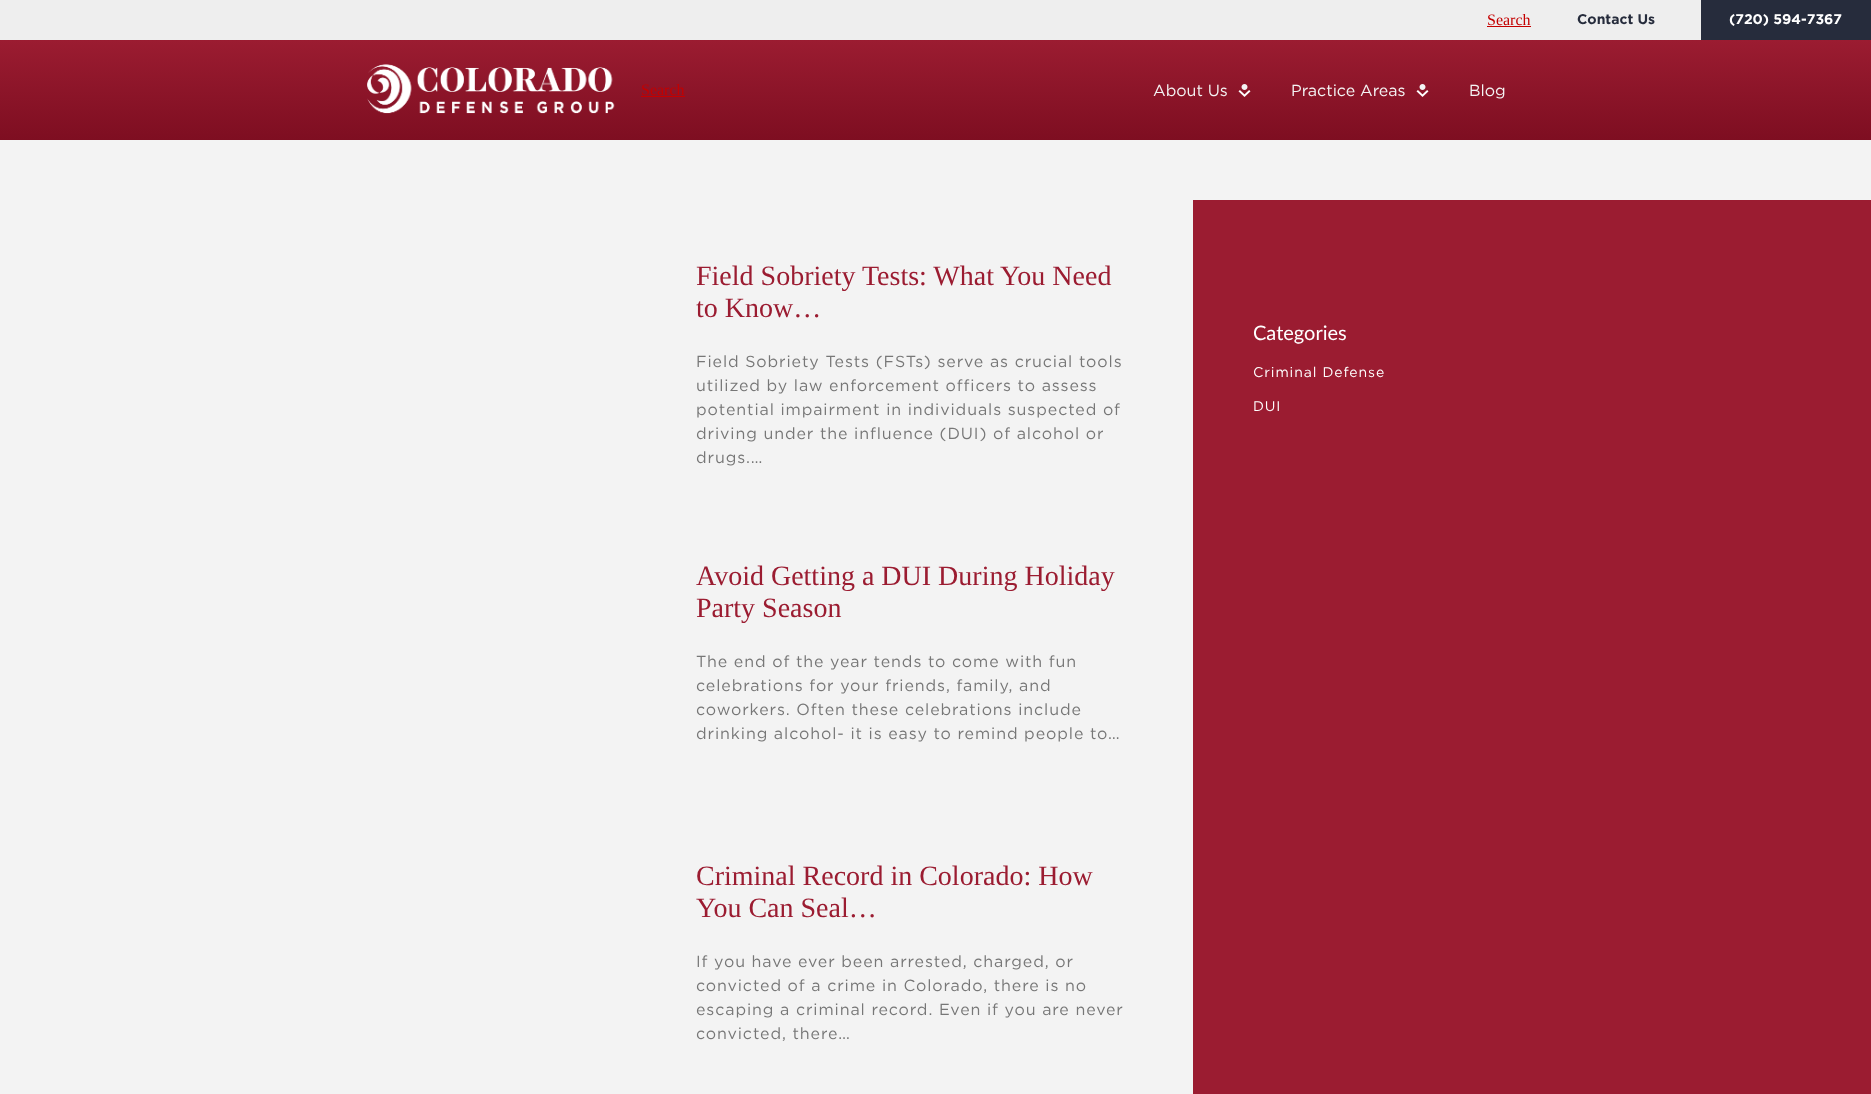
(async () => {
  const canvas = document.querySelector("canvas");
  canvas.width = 1871;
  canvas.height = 1094;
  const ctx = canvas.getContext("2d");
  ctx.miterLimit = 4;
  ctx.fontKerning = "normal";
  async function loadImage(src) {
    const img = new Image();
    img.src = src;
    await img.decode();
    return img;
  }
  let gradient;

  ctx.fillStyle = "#f3f3f3";
  ctx.fillRect(0, 0, 1871, 1094);
  for (const [x, y, w, h, color] of [
    [0, 0, 1701, 40, "#eeeeee"],
    [1487, 26, 44, 1, "#c40000"],
    [1701, 0, 170, 40, "#262c3c"],
  ]) {
    ctx.fillStyle = color;
    ctx.fillRect(x, y, w, h);
  }
  gradient = ctx.createLinearGradient(936, 40, 936, 140);
  gradient.addColorStop(0, "#9b1c31");
  gradient.addColorStop(1, "#7e0e21");
  ctx.fillStyle = gradient;
  ctx.fillRect(0, 40, 1871, 100);
  ctx.drawImage(await loadImage("img/1.png"), 367, 64, 248, 50);
  ctx.fillStyle = "#c40000";
  ctx.fillRect(641, 96, 44, 1);
  ctx.drawImage(await loadImage("img/2.png"), 1238, 84, 13, 13);
  ctx.drawImage(await loadImage("img/2.png"), 1416, 84, 13, 13);
  ctx.fillStyle = "#9b1c31";
  ctx.fillRect(1193, 200, 678, 894);
  ctx.font = "16px Liberation Serif";
  ctx.fillStyle = "#c40000";
  ctx.fillText("Search", 1487, 25);
  ctx.font = "bold 14px Gotham";
  ctx.fillStyle = "#262c3c";
  ctx.fillText("Contact Us", 1577, 24);
  ctx.fillStyle = "#ffffff";
  ctx.fillText("(720) 594-7367", 1729, 24);
  ctx.font = "16px Liberation Serif";
  ctx.fillStyle = "#c40000";
  ctx.fillText("Search", 641, 95);
  ctx.font = "16px Gotham";
  ctx.fillStyle = "#f4f4f4";
  for (const [text, x, y] of [
    ["About Us", 1153, 96],
    ["Practice Areas", 1291, 96],
    ["Blog", 1469, 96],
  ]) {
    ctx.fillText(text, x, y);
  }
  ctx.font = "28px Liberation Serif";
  ctx.fillStyle = "#9b1c31";
  ctx.fillText("Field Sobriety Tests: What You Need", 696, 285);
  ctx.fillText("to Know…", 696, 317);
  ctx.letterSpacing = "0.9px";
  ctx.font = "16px Gotham";
  ctx.fillStyle = "#777777";
  for (const [text, x, y] of [
    ["Field Sobriety Tests (FSTs) serve as crucial tools", 696, 367],
    ["utilized by law enforcement officers to assess", 696, 391],
    ["potential impairment in individuals suspected of", 696, 415],
    ["driving under the influence (DUI) of alcohol or", 696, 439],
    ["drugs.…", 696, 463],
  ]) {
    ctx.fillText(text, x, y);
  }
  ctx.letterSpacing = "0px";
  ctx.font = "28px Liberation Serif";
  ctx.fillStyle = "#9b1c31";
  ctx.fillText("Avoid Getting a DUI During Holiday", 696, 585);
  ctx.fillText("Party Season", 696, 617);
  ctx.letterSpacing = "0.9px";
  ctx.font = "16px Gotham";
  ctx.fillStyle = "#777777";
  for (const [text, x, y] of [
    ["The end of the year tends to come with fun", 696, 667],
    ["celebrations for your friends, family, and", 696, 691],
    ["coworkers. Often these celebrations include", 696, 715],
    ["drinking alcohol- it is easy to remind people to…", 696, 739],
  ]) {
    ctx.fillText(text, x, y);
  }
  ctx.letterSpacing = "0px";
  ctx.font = "28px Liberation Serif";
  ctx.fillStyle = "#9b1c31";
  ctx.fillText("Criminal Record in Colorado: How", 696, 885);
  ctx.fillText("You Can Seal…", 696, 917);
  ctx.letterSpacing = "0.9px";
  ctx.font = "16px Gotham";
  ctx.fillStyle = "#777777";
  for (const [text, x, y] of [
    ["If you have ever been arrested, charged, or", 696, 967],
    ["convicted of a crime in Colorado, there is no", 696, 991],
    ["escaping a criminal record. Even if you are never", 696, 1015],
    ["convicted, there…", 696, 1039],
  ]) {
    ctx.fillText(text, x, y);
  }
  ctx.letterSpacing = "0px";
  ctx.font = "20px Lato";
  ctx.fillStyle = "#ffffff";
  ctx.fillText("Categories", 1253, 340);
  ctx.letterSpacing = "0.9px";
  ctx.font = "14px Gotham";
  ctx.fillText("Criminal Defense", 1253, 377);
  ctx.fillText("DUI", 1253, 411);
})();
